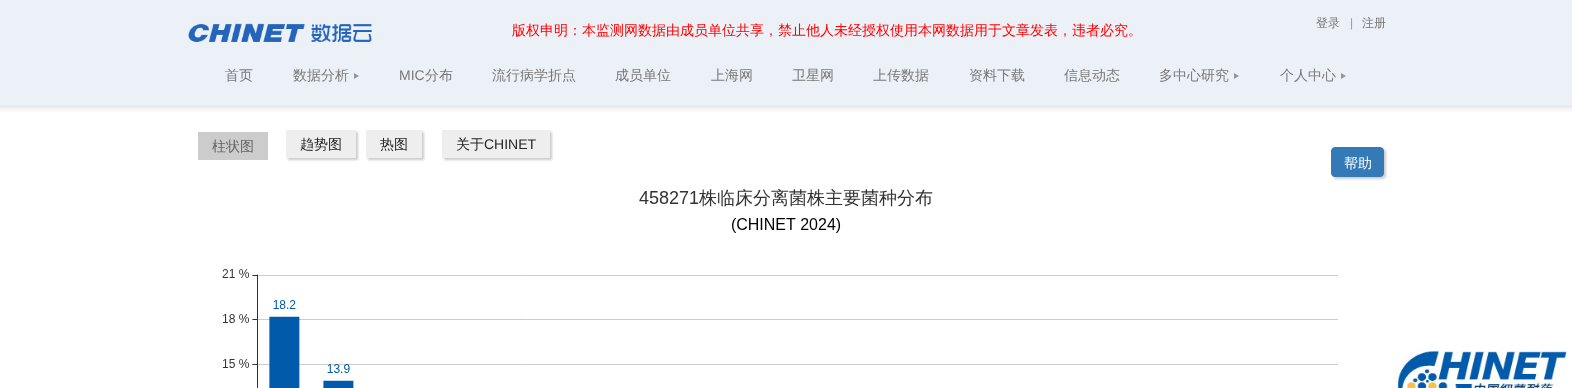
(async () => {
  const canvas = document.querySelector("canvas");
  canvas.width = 1572;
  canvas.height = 388;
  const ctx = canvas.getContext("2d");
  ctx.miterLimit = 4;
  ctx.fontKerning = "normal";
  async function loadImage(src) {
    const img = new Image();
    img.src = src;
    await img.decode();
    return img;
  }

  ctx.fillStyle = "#ffffff";
  ctx.fillRect(0, 0, 1572, 388);
  ctx.drawImage(await loadImage("img/1.png"), 0, 0, 1572, 112);
  ctx.drawImage(await loadImage("img/2.png"), 188, 23, 184, 19);
  ctx.drawImage(await loadImage("img/3.png"), 354, 73, 6, 6);
  ctx.drawImage(await loadImage("img/3.png"), 1234, 73, 6, 6);
  ctx.drawImage(await loadImage("img/3.png"), 1341, 73, 6, 6);
  ctx.fillStyle = "#cccccc";
  ctx.fillRect(198, 132, 70, 28);
  ctx.fillStyle = "rgba(0, 0, 0, 0.2)";
  ctx.filter = "blur(1px)";
  ctx.beginPath();
  ctx.rect(288, 132, 70, 28);
  ctx.fill();
  ctx.filter = "none";
  ctx.fillStyle = "#eeeeee";
  ctx.fillRect(286, 130, 70, 28);
  ctx.fillStyle = "rgba(0, 0, 0, 0.2)";
  ctx.filter = "blur(1px)";
  ctx.beginPath();
  ctx.rect(368, 132, 56, 28);
  ctx.fill();
  ctx.filter = "none";
  ctx.fillStyle = "#eeeeee";
  ctx.fillRect(366, 130, 56, 28);
  ctx.fillStyle = "rgba(0, 0, 0, 0.2)";
  ctx.filter = "blur(1px)";
  ctx.beginPath();
  ctx.rect(444, 132, 108, 28);
  ctx.fill();
  ctx.filter = "none";
  ctx.fillStyle = "#eeeeee";
  ctx.fillRect(442, 130, 108, 28);
  ctx.fillStyle = "rgba(0, 0, 0, 0.2)";
  ctx.filter = "blur(1px)";
  ctx.beginPath();
  ctx.roundRect(1333, 149, 53, 30, 4);
  ctx.fill();
  ctx.filter = "none";
  ctx.fillStyle = "#337ab7";
  ctx.beginPath();
  ctx.roundRect(1331.5, 147.5, 52, 29, 3.5);
  ctx.fill();
  ctx.strokeStyle = "#337ab7";
  ctx.stroke();
  ctx.drawImage(await loadImage("img/4.png"), 222, 188, 1116, 200);
  ctx.drawImage(await loadImage("img/5.png"), 1397, 348, 172, 40);
  ctx.font = "500 14px WenQuanYi Zen Hei";
  ctx.fillStyle = "#ff0000";
  ctx.fillText("版权申明：本监测网数据由成员单位共享，禁止他人未经授权使用本网数据用于文章发表，违者必究。", 512, 35);
  ctx.font = "500 12px WenQuanYi Zen Hei";
  ctx.fillStyle = "#787878";
  ctx.fillText("登录", 1316, 27);
  ctx.font = "12px Liberation Sans";
  ctx.fillStyle = "#999999";
  ctx.fillText("|", 1350, 27);
  ctx.font = "500 12px WenQuanYi Zen Hei";
  ctx.fillStyle = "#787878";
  ctx.fillText("注册", 1362, 27);
  ctx.font = "500 14px WenQuanYi Zen Hei";
  ctx.fillText("首页", 225, 80);
  ctx.fillText("数据分析", 293, 80);
  ctx.font = "14px Liberation Sans";
  ctx.fillText("MIC", 399, 80);
  ctx.font = "500 14px WenQuanYi Zen Hei";
  for (const [text, x, y] of [
    ["分布", 425, 80],
    ["流行病学折点", 492, 80],
    ["成员单位", 615, 80],
    ["上海网", 711, 80],
    ["卫星网", 792, 80],
    ["上传数据", 873, 80],
    ["资料下载", 969, 80],
    ["信息动态", 1064, 80],
    ["多中心研究", 1159, 80],
    ["个人中心", 1280, 80],
  ]) {
    ctx.fillText(text, x, y);
  }
  ctx.fillStyle = "#666666";
  ctx.fillText("柱状图", 212, 151);
  ctx.fillStyle = "#242424";
  for (const [text, x, y] of [
    ["趋势图", 300, 149],
    ["热图", 380, 149],
    ["关于", 456, 149],
  ]) {
    ctx.fillText(text, x, y);
  }
  ctx.font = "14px Liberation Sans";
  ctx.fillText("CHINET", 484, 149);
  ctx.font = "500 14px WenQuanYi Zen Hei";
  ctx.fillStyle = "#ffffff";
  ctx.fillText("帮助", 1344, 168);
})();
